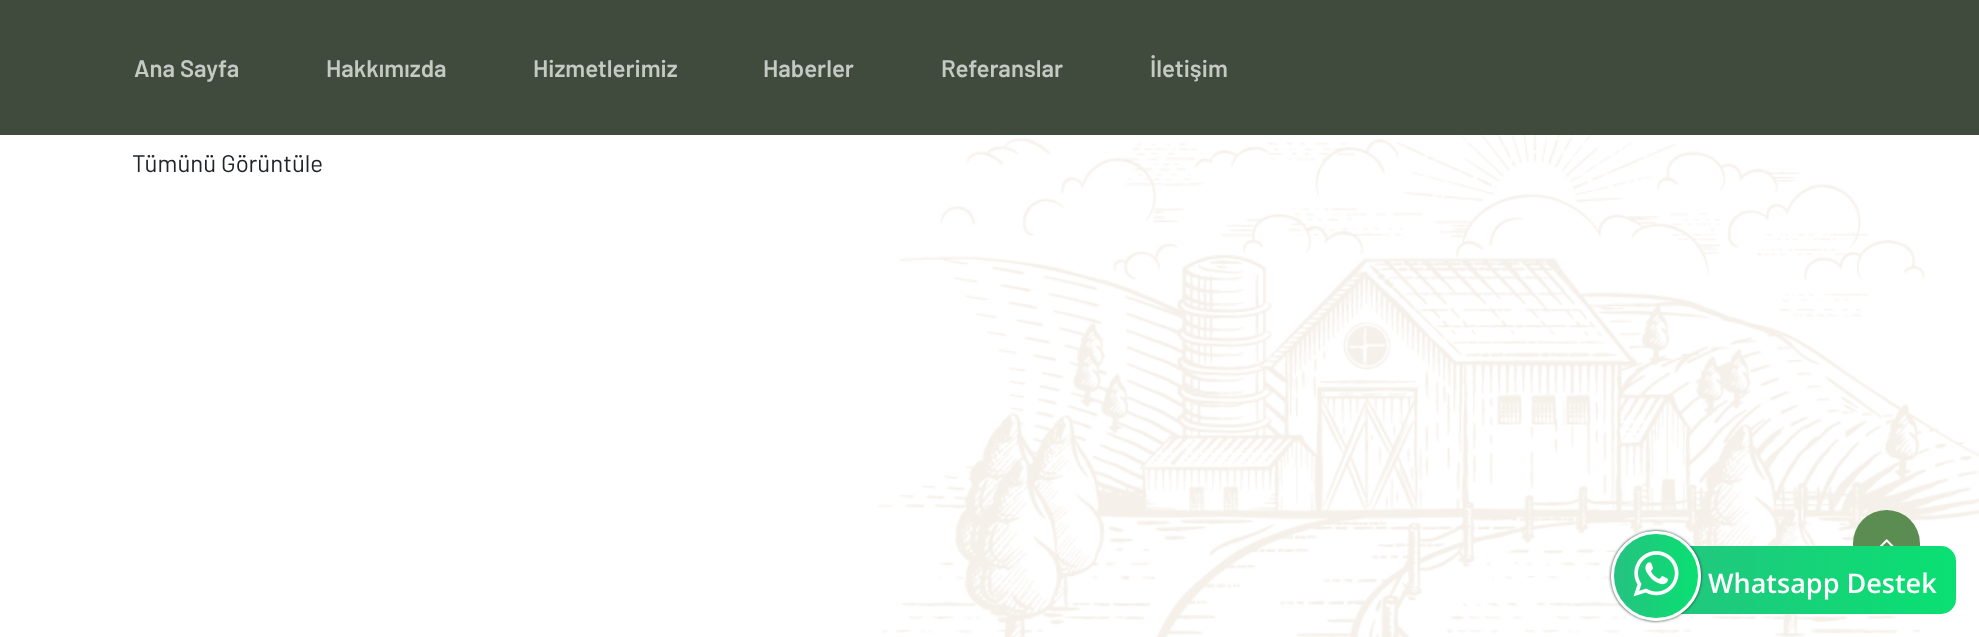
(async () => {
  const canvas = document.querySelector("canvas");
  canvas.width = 1979;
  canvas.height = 637;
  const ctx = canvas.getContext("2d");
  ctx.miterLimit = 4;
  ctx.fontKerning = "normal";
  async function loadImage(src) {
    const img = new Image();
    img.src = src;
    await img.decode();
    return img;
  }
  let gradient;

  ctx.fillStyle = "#ffffff";
  ctx.fillRect(0, 0, 1979, 637);
  ctx.fillStyle = "#404a3d";
  ctx.fillRect(0, 0, 1979, 135);
  ctx.drawImage(await loadImage("img/1.png"), 877, 135, 1102, 502);
  ctx.fillStyle = "#5b8c51";
  ctx.beginPath();
  ctx.roundRect(1853, 510, 67, 68, 33.5);
  ctx.fill();
  ctx.drawImage(await loadImage("img/2.png"), 1879, 539, 15, 7);
  gradient = ctx.createLinearGradient(1625, 580, 1956, 580);
  gradient.addColorStop(0, "#26c281");
  gradient.addColorStop(1, "#09e072");
  ctx.fillStyle = gradient;
  ctx.beginPath();
  ctx.roundRect(1625, 546, 331, 68, 15);
  ctx.fill();
  ctx.fillStyle = "#222222";
  ctx.filter = "blur(1.5px)";
  ctx.beginPath();
  ctx.roundRect(1611, 531, 90, 90, 45);
  ctx.fill();
  ctx.filter = "none";
  ctx.save();
  ctx.beginPath();
  ctx.roundRect(1611, 531, 90, 90, 45);
  ctx.clip();
  gradient = ctx.createLinearGradient(1614, 576, 1698, 576);
  gradient.addColorStop(0, "#26c281");
  gradient.addColorStop(1, "#09e072");
  ctx.fillStyle = gradient;
  ctx.fillRect(1614, 531, 84, 90);
  ctx.restore();
  ctx.beginPath();
  ctx.arc(1656, 576, 43.5, 0, Math.PI * 2);
  ctx.strokeStyle = "#ffffff";
  ctx.lineWidth = 3;
  ctx.stroke();
  ctx.drawImage(await loadImage("img/3.png"), 1633, 551, 46, 46);
  ctx.font = "600 24px Barlow";
  ctx.fillStyle = "#c5c9c4";
  for (const [text, x, y] of [
    ["Ana Sayfa", 134, 77],
    ["Hakkımızda", 326, 77],
    ["Hizmetlerimiz", 533, 77],
    ["Haberler", 763, 77],
    ["Referanslar", 941, 77],
    ["İletişim", 1150, 77],
  ]) {
    ctx.fillText(text, x, y);
  }
  ctx.font = "24px Barlow";
  ctx.fillStyle = "#212529";
  ctx.fillText("Tümünü Görüntüle", 132, 172);
  ctx.font = "600 27px Open Sans";
  ctx.fillStyle = "#ffffff";
  ctx.fillText("Whatsapp Destek", 1708, 593);
})();
